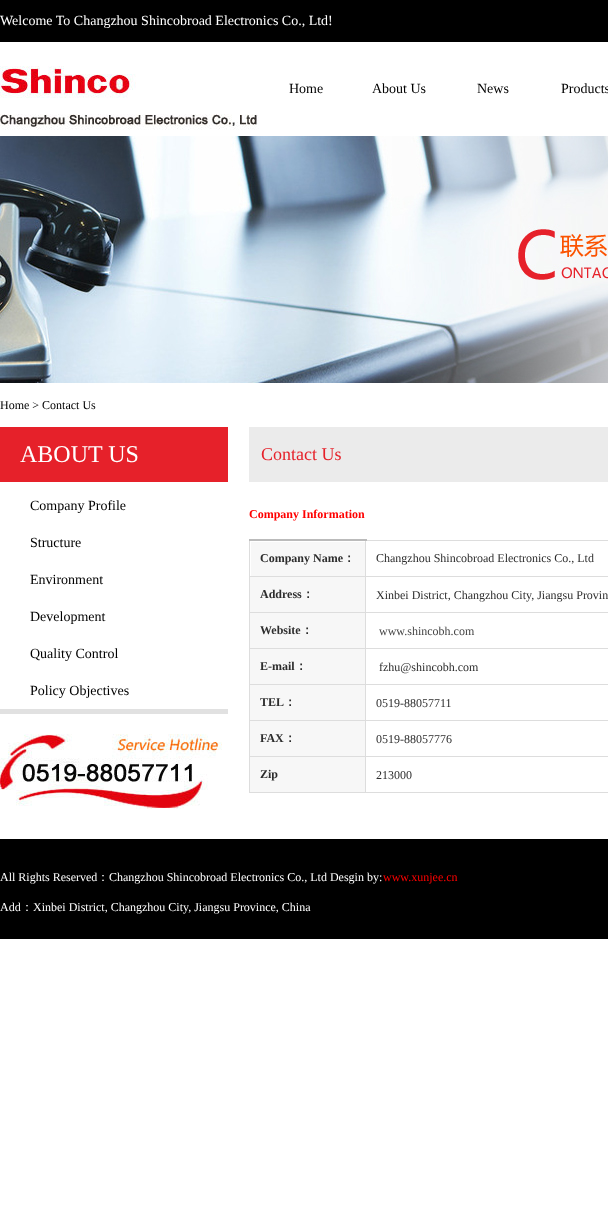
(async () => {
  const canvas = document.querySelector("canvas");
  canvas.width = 608;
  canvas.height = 1227;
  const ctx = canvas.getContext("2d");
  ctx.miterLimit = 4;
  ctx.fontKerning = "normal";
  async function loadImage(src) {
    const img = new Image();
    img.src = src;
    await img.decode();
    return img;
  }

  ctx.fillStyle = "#ffffff";
  ctx.fillRect(0, 0, 608, 1227);
  ctx.fillStyle = "#000000";
  ctx.fillRect(0, 0, 608, 42);
  ctx.drawImage(await loadImage("img/1.png"), 0, 66, 259, 64);
  ctx.drawImage(await loadImage("img/2.png"), 0, 136, 608, 247);
  ctx.fillStyle = "#e6212a";
  ctx.fillRect(0, 427, 228, 55);
  ctx.fillStyle = "#e1e1e1";
  ctx.fillRect(0, 709, 228, 5);
  ctx.drawImage(await loadImage("img/3.png"), 0, 734, 222, 75);
  for (const [x, y, w, h, color] of [
    [249, 427, 359, 55, "#ebebeb"],
    [251, 542, 114, 34, "#f7f7f7"],
    [365, 540, 243, 1, "#dddddd"],
    [365, 576, 243, 1, "#dddddd"],
    [365, 612, 243, 1, "#dddddd"],
    [365, 648, 243, 1, "#dddddd"],
    [365, 684, 243, 1, "#dddddd"],
    [365, 720, 243, 1, "#dddddd"],
    [365, 756, 243, 1, "#dddddd"],
    [365, 792, 243, 1, "#dddddd"],
    [365, 756, 1, 37, "#dddddd"],
    [365, 720, 1, 37, "#dddddd"],
    [365, 684, 1, 37, "#dddddd"],
    [365, 648, 1, 37, "#dddddd"],
    [365, 612, 1, 37, "#dddddd"],
    [365, 576, 1, 37, "#dddddd"],
    [365, 540, 1, 37, "#dddddd"],
    [249, 792, 117, 1, "#dddddd"],
    [249, 756, 1, 37, "#dddddd"],
    [249, 756, 117, 1, "#dddddd"],
    [249, 720, 1, 37, "#dddddd"],
    [249, 720, 117, 1, "#dddddd"],
    [249, 684, 1, 37, "#dddddd"],
    [249, 684, 117, 1, "#dddddd"],
    [249, 648, 1, 37, "#dddddd"],
    [249, 648, 117, 1, "#dddddd"],
    [249, 612, 1, 37, "#dddddd"],
    [249, 612, 117, 1, "#dddddd"],
    [249, 576, 1, 37, "#dddddd"],
    [249, 576, 117, 1, "#dddddd"],
    [249, 540, 1, 37, "#dddddd"],
    [249, 539, 118, 2, "#bbbbbb"],
    [250, 577, 115, 35, "#f7f7f7"],
    [250, 613, 115, 35, "#f7f7f7"],
    [250, 649, 115, 35, "#f7f7f7"],
    [250, 685, 115, 35, "#f7f7f7"],
    [250, 721, 115, 35, "#f7f7f7"],
    [250, 757, 115, 35, "#f7f7f7"],
    [0, 839, 608, 100, "#000000"],
  ]) {
    ctx.fillStyle = color;
    ctx.fillRect(x, y, w, h);
  }
  ctx.font = "14px Liberation Serif";
  ctx.fillStyle = "#ffffff";
  ctx.fillText("Welcome To Changzhou Shincobroad Electronics Co., Ltd!", 0, 25);
  ctx.fillStyle = "#000000";
  for (const [text, x, y] of [
    ["Home", 289, 93],
    ["About Us", 372, 93],
    ["News", 477, 93],
    ["Products", 561, 93],
  ]) {
    ctx.fillText(text, x, y);
  }
  ctx.font = "12px Liberation Serif";
  ctx.fillText("Home > Contact Us", 0, 409);
  ctx.font = "24px Liberation Serif";
  ctx.fillStyle = "#ffffff";
  ctx.fillText("ABOUT US", 20, 462);
  ctx.font = "14px Liberation Serif";
  ctx.fillStyle = "#000000";
  for (const [text, x, y] of [
    ["Company Profile", 30, 510],
    ["Structure", 30, 547],
    ["Environment", 30, 584],
    ["Development", 30, 621],
    ["Quality Control", 30, 658],
    ["Policy Objectives", 30, 695],
  ]) {
    ctx.fillText(text, x, y);
  }
  ctx.font = "18px Liberation Serif";
  ctx.fillStyle = "#e6212a";
  ctx.fillText("Contact Us", 261, 460);
  ctx.font = "bold 12px Liberation Serif";
  ctx.fillStyle = "#ff0000";
  ctx.fillText("Company Information", 249, 518);
  ctx.fillStyle = "#2d2d2d";
  ctx.fillText("Company Name", 260, 562);
  ctx.font = "bold 12px WenQuanYi Zen Hei";
  ctx.fillText("：", 343, 562);
  ctx.font = "12px Liberation Serif";
  ctx.fillText("Changzhou Shincobroad Electronics Co., Ltd", 376, 562);
  ctx.font = "bold 12px Liberation Serif";
  ctx.fillText("Address", 260, 598);
  ctx.font = "bold 12px WenQuanYi Zen Hei";
  ctx.fillText("：", 302, 598);
  ctx.font = "12px Liberation Serif";
  ctx.fillText("Xinbei District, Changzhou City, Jiangsu Provin", 376, 599);
  ctx.font = "bold 12px Liberation Serif";
  ctx.fillText("Website", 260, 634);
  ctx.font = "bold 12px WenQuanYi Zen Hei";
  ctx.fillText("：", 301, 634);
  ctx.font = "12px Liberation Serif";
  ctx.fillStyle = "#454545";
  ctx.fillText("www.shincobh.com", 379, 635);
  ctx.font = "bold 12px Liberation Serif";
  ctx.fillStyle = "#2d2d2d";
  ctx.fillText("E-mail", 260, 670);
  ctx.font = "bold 12px WenQuanYi Zen Hei";
  ctx.fillText("：", 295, 670);
  ctx.font = "12px Liberation Serif";
  ctx.fillText("fzhu@shincobh.com", 379, 671);
  ctx.font = "bold 12px Liberation Serif";
  ctx.fillText("TEL", 260, 706);
  ctx.font = "bold 12px WenQuanYi Zen Hei";
  ctx.fillText("：", 284, 706);
  ctx.font = "12px Liberation Serif";
  ctx.fillText("0519-88057711", 376, 707);
  ctx.font = "bold 12px Liberation Serif";
  ctx.fillText("FAX", 260, 742);
  ctx.font = "bold 12px WenQuanYi Zen Hei";
  ctx.fillText("：", 284, 742);
  ctx.font = "12px Liberation Serif";
  ctx.fillText("0519-88057776", 376, 743);
  ctx.font = "bold 12px Liberation Serif";
  ctx.fillText("Zip", 260, 778);
  ctx.font = "12px Liberation Serif";
  ctx.fillText("213000", 376, 779);
  ctx.fillStyle = "#ffffff";
  ctx.fillText("All Rights Reserved", 0, 881);
  ctx.font = "500 12px WenQuanYi Zen Hei";
  ctx.fillText("：", 97, 881);
  ctx.font = "12px Liberation Serif";
  ctx.fillText("Changzhou Shincobroad Electronics Co., Ltd Desgin by:", 109, 881);
  ctx.fillStyle = "#ff0000";
  ctx.fillText("www.xunjee.cn", 383, 881);
  ctx.fillStyle = "#ffffff";
  ctx.fillText("Add", 0, 911);
  ctx.font = "500 12px WenQuanYi Zen Hei";
  ctx.fillText("：", 21, 911);
  ctx.font = "12px Liberation Serif";
  ctx.fillText("Xinbei District, Changzhou City, Jiangsu Province, China", 33, 911);
})();
